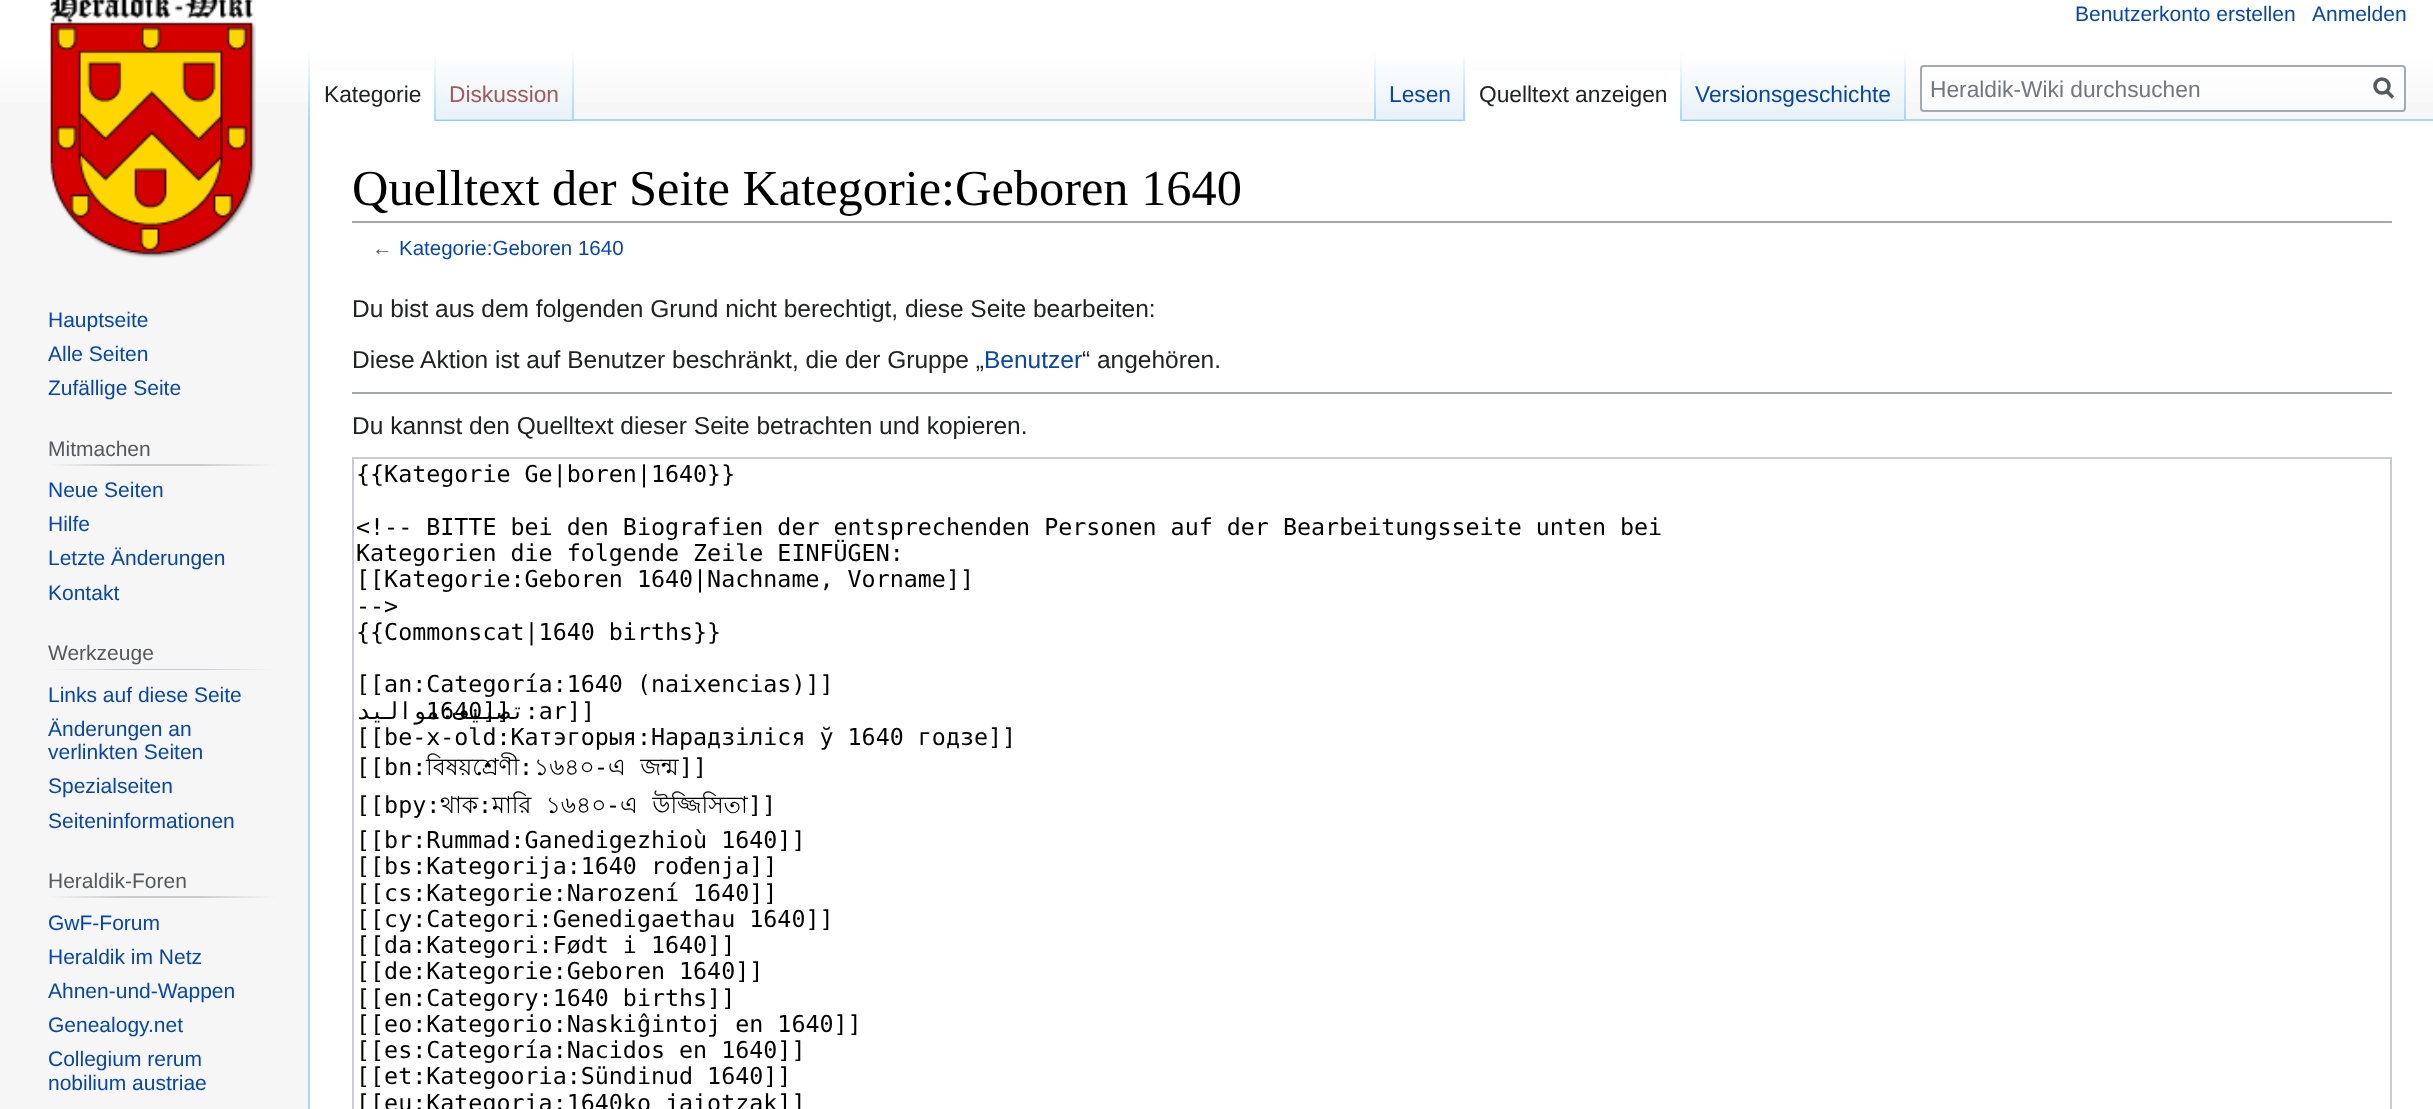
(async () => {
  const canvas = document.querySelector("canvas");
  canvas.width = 2433;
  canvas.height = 1109;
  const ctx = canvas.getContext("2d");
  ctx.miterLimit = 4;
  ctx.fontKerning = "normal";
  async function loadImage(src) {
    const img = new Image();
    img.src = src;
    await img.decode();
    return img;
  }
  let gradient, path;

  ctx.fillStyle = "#f6f6f6";
  ctx.fillRect(0, 0, 2433, 1109);
  gradient = ctx.createLinearGradient(1217, -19, 1217, 121);
  gradient.addColorStop(0.5, "#ffffff");
  gradient.addColorStop(1, "#f6f6f6");
  ctx.fillStyle = gradient;
  ctx.fillRect(0, 0, 2433, 102);
  ctx.fillStyle = "#a7d7f9";
  ctx.fillRect(308, 119, 2, 990);
  gradient = ctx.createLinearGradient(309, 51, 309, 121);
  gradient.addColorStop(0, "rgba(167, 215, 249, 0)");
  gradient.addColorStop(1, "#a7d7f9");
  ctx.fillStyle = gradient;
  ctx.fillRect(308, 51, 2, 70);
  ctx.fillStyle = "#ffffff";
  ctx.fillRect(310, 70, 124, 51);
  gradient = ctx.createLinearGradient(435, 51, 435, 121);
  gradient.addColorStop(0, "#ffffff");
  gradient.addColorStop(1, "#a7d7f9");
  ctx.fillStyle = gradient;
  ctx.fillRect(434, 51, 2, 70);
  gradient = ctx.createLinearGradient(505, 121, 505, 51);
  gradient.addColorStop(0, "#77c1f6");
  gradient.addColorStop(0.03, "#e8f2f8");
  gradient.addColorStop(1, "#ffffff");
  ctx.fillStyle = gradient;
  ctx.fillRect(436, 61, 138, 60);
  gradient = ctx.createLinearGradient(573, 51, 573, 121);
  gradient.addColorStop(0, "rgba(167, 215, 249, 0)");
  gradient.addColorStop(1, "#a7d7f9");
  ctx.fillStyle = gradient;
  ctx.fillRect(572, 51, 2, 70);
  ctx.fillStyle = "#a7d7f9";
  ctx.fillRect(574, 119, 1859, 2);
  gradient = ctx.createLinearGradient(1375, 51, 1375, 121);
  gradient.addColorStop(0, "rgba(167, 215, 249, 0)");
  gradient.addColorStop(1, "#a7d7f9");
  ctx.fillStyle = gradient;
  ctx.fillRect(1374, 51, 2, 70);
  gradient = ctx.createLinearGradient(1420, 121, 1420, 51);
  gradient.addColorStop(0, "#77c1f6");
  gradient.addColorStop(0.03, "#e8f2f8");
  gradient.addColorStop(1, "#ffffff");
  ctx.fillStyle = gradient;
  ctx.fillRect(1376, 61, 89, 60);
  gradient = ctx.createLinearGradient(1464, 51, 1464, 121);
  gradient.addColorStop(0, "rgba(167, 215, 249, 0)");
  gradient.addColorStop(1, "#a7d7f9");
  ctx.fillStyle = gradient;
  ctx.fillRect(1463, 51, 2, 70);
  ctx.fillStyle = "#ffffff";
  ctx.fillRect(1465, 70, 215, 51);
  gradient = ctx.createLinearGradient(1681, 51, 1681, 121);
  gradient.addColorStop(0, "#ffffff");
  gradient.addColorStop(1, "#a7d7f9");
  ctx.fillStyle = gradient;
  ctx.fillRect(1680, 51, 2, 70);
  gradient = ctx.createLinearGradient(1794, 121, 1794, 51);
  gradient.addColorStop(0, "#77c1f6");
  gradient.addColorStop(0.03, "#e8f2f8");
  gradient.addColorStop(1, "#ffffff");
  ctx.fillStyle = gradient;
  ctx.fillRect(1682, 61, 224, 60);
  gradient = ctx.createLinearGradient(1905, 51, 1905, 121);
  gradient.addColorStop(0, "rgba(167, 215, 249, 0)");
  gradient.addColorStop(1, "#a7d7f9");
  ctx.fillStyle = gradient;
  ctx.fillRect(1904, 51, 2, 70);
  ctx.fillStyle = "rgba(255, 255, 255, 0.5)";
  ctx.beginPath();
  ctx.roundRect(1921, 66, 484, 45, 3);
  ctx.fill();
  ctx.strokeStyle = "#a2a9b1";
  ctx.lineWidth = 2;
  ctx.stroke();
  path = new Path2D("M2393 97.5L2386 90.5");
  ctx.strokeStyle = "#54595d";
  ctx.lineWidth = 3.5;
  ctx.stroke(path);
  ctx.beginPath();
  ctx.arc(2382, 86, 7, 0, Math.PI * 2);
  ctx.stroke();
  ctx.drawImage(await loadImage("img/1.png"), 49, 0, 207, 258);
  gradient = ctx.createLinearGradient(47, 465, 277, 465);
  gradient.addColorStop(0, "#f6f6f6");
  gradient.addColorStop(0.33, "#c8ccd1");
  gradient.addColorStop(0.66, "#c8ccd1");
  gradient.addColorStop(1, "#f6f6f6");
  ctx.fillStyle = gradient;
  ctx.fillRect(47, 464, 230, 2);
  gradient = ctx.createLinearGradient(47, 669, 277, 669);
  gradient.addColorStop(0, "#f6f6f6");
  gradient.addColorStop(0.33, "#c8ccd1");
  gradient.addColorStop(0.66, "#c8ccd1");
  gradient.addColorStop(1, "#f6f6f6");
  ctx.fillStyle = gradient;
  ctx.fillRect(47, 669, 230, 1);
  gradient = ctx.createLinearGradient(47, 897, 277, 897);
  gradient.addColorStop(0, "#f6f6f6");
  gradient.addColorStop(0.33, "#c8ccd1");
  gradient.addColorStop(0.66, "#c8ccd1");
  gradient.addColorStop(1, "#f6f6f6");
  ctx.fillStyle = gradient;
  ctx.fillRect(47, 896, 230, 2);
  for (const [x, y, w, h, color] of [
    [310, 121, 2123, 988, "#ffffff"],
    [352, 221, 2040, 2, "#a2a9b1"],
    [352, 392, 2040, 2, "#a2a9b1"],
  ]) {
    ctx.fillStyle = color;
    ctx.fillRect(x, y, w, h);
  }
  ctx.strokeStyle = "#c8ccd1";
  ctx.lineWidth = 2;
  ctx.strokeRect(353, 458, 2038, 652);
  ctx.font = "21px Liberation Sans";
  ctx.fillStyle = "#0645ad";
  ctx.fillText("Benutzerkonto erstellen", 2075, 21);
  ctx.fillText("Anmelden", 2312, 21);
  ctx.font = "22.75px Liberation Sans";
  ctx.fillStyle = "#202122";
  ctx.fillText("Kategorie", 324, 102);
  ctx.fillStyle = "#a55858";
  ctx.fillText("Diskussion", 449, 102);
  ctx.fillStyle = "#0645ad";
  ctx.fillText("Lesen", 1389, 102);
  ctx.fillStyle = "#202122";
  ctx.fillText("Quelltext anzeigen", 1479, 102);
  ctx.fillStyle = "#0645ad";
  ctx.fillText("Versionsgeschichte", 1695, 102);
  ctx.fillStyle = "#72777d";
  ctx.fillText("Heraldik-Wiki durchsuchen", 1930, 97);
  ctx.font = "21px Liberation Sans";
  ctx.fillStyle = "#0645ad";
  for (const [text, x, y] of [
    ["Hauptseite", 48, 327],
    ["Alle Seiten", 48, 361],
    ["Zufällige Seite", 48, 395],
  ]) {
    ctx.fillText(text, x, y);
  }
  ctx.fillStyle = "#54595d";
  ctx.fillText("Mitmachen", 48, 456);
  ctx.fillStyle = "#0645ad";
  for (const [text, x, y] of [
    ["Neue Seiten", 48, 497],
    ["Hilfe", 48, 531],
    ["Letzte Änderungen", 48, 565],
    ["Kontakt", 48, 600],
  ]) {
    ctx.fillText(text, x, y);
  }
  ctx.fillStyle = "#54595d";
  ctx.fillText("Werkzeuge", 48, 660);
  ctx.fillStyle = "#0645ad";
  for (const [text, x, y] of [
    ["Links auf diese Seite", 48, 702],
    ["Änderungen an", 48, 736],
    ["verlinkten Seiten", 48, 759],
    ["Spezialseiten", 48, 793],
    ["Seiteninformationen", 48, 828],
  ]) {
    ctx.fillText(text, x, y);
  }
  ctx.fillStyle = "#54595d";
  ctx.fillText("Heraldik-Foren", 48, 888);
  ctx.fillStyle = "#0645ad";
  for (const [text, x, y] of [
    ["GwF-Forum", 48, 930],
    ["Heraldik im Netz", 48, 964],
    ["Ahnen-und-Wappen", 48, 998],
    ["Genealogy.net", 48, 1032],
    ["Collegium rerum", 48, 1066],
    ["nobilium austriae", 48, 1090],
  ]) {
    ctx.fillText(text, x, y);
  }
  ctx.font = "50.4px Liberation Serif";
  ctx.fillStyle = "#000000";
  ctx.fillText("Quelltext der Seite Kategorie:Geboren 1640", 352, 205);
  ctx.font = "20.5px Liberation Sans";
  ctx.fillStyle = "#54595d";
  ctx.fillText("←", 372, 255);
  ctx.fillStyle = "#0645ad";
  ctx.fillText("Kategorie:Geboren 1640", 399, 255);
  ctx.font = "24.5px Liberation Sans";
  ctx.fillStyle = "#202122";
  ctx.fillText("Du bist aus dem folgenden Grund nicht berechtigt, diese Seite bearbeiten:", 352, 317);
  ctx.fillText("Diese Aktion ist auf Benutzer beschränkt, die der Gruppe „", 352, 368);
  ctx.fillStyle = "#0645ad";
  ctx.fillText("Benutzer", 984, 368);
  ctx.fillStyle = "#202122";
  ctx.fillText("“ angehören.", 1082, 368);
  ctx.fillText("Du kannst den Quelltext dieser Seite betrachten und kopieren.", 352, 434);
  ctx.font = "23.33px DejaVu Sans Mono";
  ctx.fillStyle = "#000000";
  for (const [text, x, y] of [
    ["{{Kategorie Ge|boren|1640}}", 356, 482],
    ["<\!-- BITTE bei den Biografien der entsprechenden Personen auf der Bearbeitungsseite unten bei", 356, 535],
    ["Kategorien die folgende Zeile EINFÜGEN:", 356, 561],
    ["[[Kategorie:Geboren 1640|Nachname, Vorname]]", 356, 587],
    ["-->", 356, 614],
    ["{{Commonscat|1640 births}}", 356, 640],
    ["[[an:Categoría:1640 (naixencias)]]", 356, 692],
  ]) {
    ctx.fillText(text, x, y);
  }
  ctx.direction = "rtl";
  ctx.fillText("[[ar:تصنيف:مواليد", 595, 719);
  ctx.direction = "ltr";
  for (const [text, x, y] of [
    ["1640]]", 426, 719],
    ["[[be-x-old:Катэгорыя:Нарадзіліся ў 1640 годзе]]", 356, 745],
    ["[[bn:", 356, 775],
  ]) {
    ctx.fillText(text, x, y);
  }
  ctx.font = "23.33px Lohit Bengali";
  ctx.fillText("বিষয়শ্রেণী", 426, 775);
  ctx.font = "23.33px DejaVu Sans Mono";
  ctx.fillText(":", 519, 775);
  ctx.font = "23.33px Lohit Bengali";
  ctx.fillText("১৬৪০", 534, 775);
  ctx.font = "23.33px DejaVu Sans Mono";
  ctx.fillText("-", 594, 775);
  ctx.wordSpacing = "8px";
  ctx.font = "23.33px Lohit Bengali";
  ctx.fillText("এ জন্ম", 608, 775);
  ctx.wordSpacing = "0px";
  ctx.font = "23.33px DejaVu Sans Mono";
  ctx.fillText("]]", 679, 775);
  ctx.fillText("[[bpy:", 356, 813);
  ctx.font = "23.33px Lohit Bengali";
  ctx.fillText("থাক", 440, 813);
  ctx.font = "23.33px DejaVu Sans Mono";
  ctx.fillText(":", 478, 813);
  ctx.wordSpacing = "8px";
  ctx.font = "23.33px Lohit Bengali";
  ctx.fillText("মারি ১৬৪০", 492, 813);
  ctx.wordSpacing = "0px";
  ctx.font = "23.33px DejaVu Sans Mono";
  ctx.fillText("-", 606, 813);
  ctx.wordSpacing = "8px";
  ctx.font = "23.33px Lohit Bengali";
  ctx.fillText("এ উজ্জিসিতা", 620, 813);
  ctx.wordSpacing = "0px";
  ctx.font = "23.33px DejaVu Sans Mono";
  for (const [text, x, y] of [
    ["]]", 748, 813],
    ["[[br:Rummad:Ganedigezhioù 1640]]", 356, 848],
    ["[[bs:Kategorija:1640 rođenja]]", 356, 874],
    ["[[cs:Kategorie:Narození 1640]]", 356, 901],
    ["[[cy:Categori:Genedigaethau 1640]]", 356, 927],
    ["[[da:Kategori:Født i 1640]]", 356, 953],
    ["[[de:Kategorie:Geboren 1640]]", 356, 979],
    ["[[en:Category:1640 births]]", 356, 1006],
    ["[[eo:Kategorio:Naskiĝintoj en 1640]]", 356, 1032],
    ["[[es:Categoría:Nacidos en 1640]]", 356, 1058],
    ["[[et:Kategooria:Sündinud 1640]]", 356, 1084],
    ["[[eu:Kategoria:1640ko jaiotzak]]", 356, 1111],
  ]) {
    ctx.fillText(text, x, y);
  }
})();
